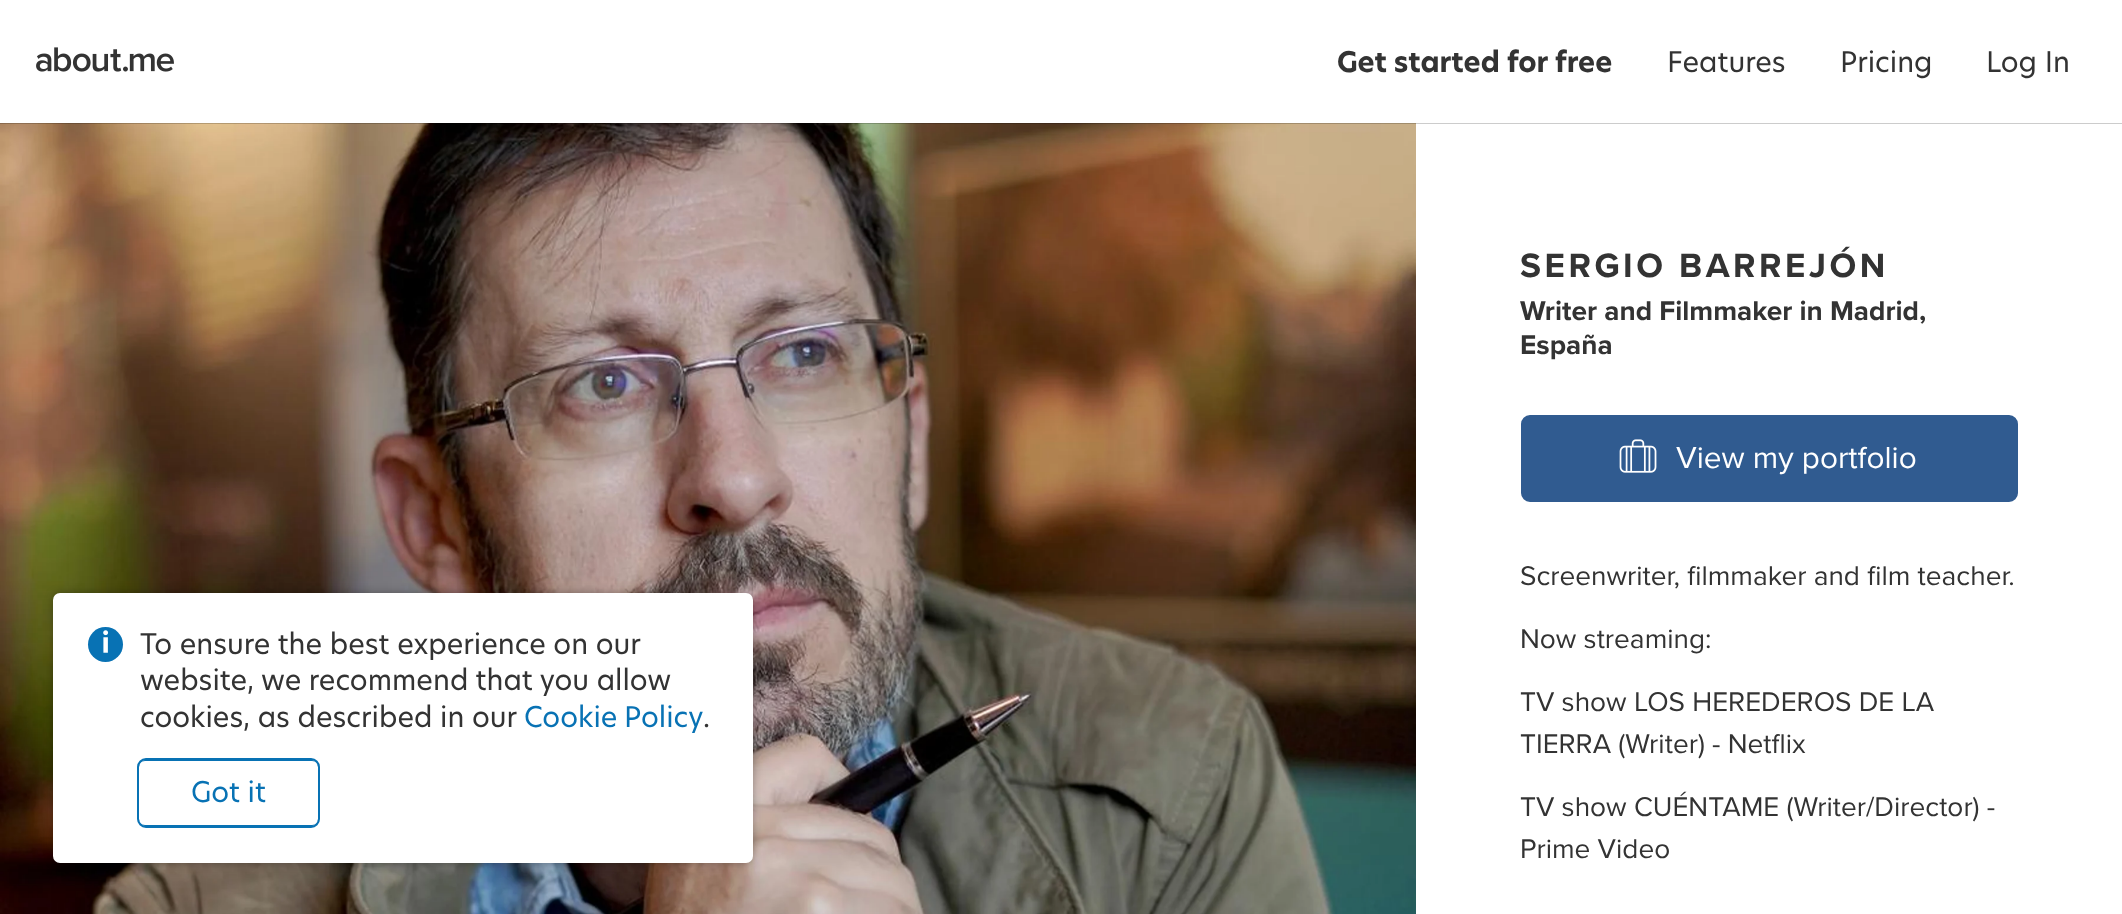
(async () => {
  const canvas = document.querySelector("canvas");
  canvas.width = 2122;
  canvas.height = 914;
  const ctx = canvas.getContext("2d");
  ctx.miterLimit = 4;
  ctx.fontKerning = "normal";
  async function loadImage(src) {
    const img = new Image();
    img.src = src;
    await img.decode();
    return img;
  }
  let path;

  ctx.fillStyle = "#ffffff";
  ctx.fillRect(0, 0, 2122, 914);
  ctx.drawImage(await loadImage("img/3.png"), 0, 123, 1416, 791);
  ctx.fillStyle = "rgba(0, 0, 0, 0.3)";
  ctx.filter = "blur(4.5px)";
  ctx.beginPath();
  ctx.roundRect(53, 593, 700, 270, 7);
  ctx.fill();
  ctx.filter = "none";
  ctx.fillStyle = "#ffffff";
  ctx.beginPath();
  ctx.roundRect(53, 593, 700, 270, 7);
  ctx.fill();
  ctx.fillStyle = "#0872b4";
  ctx.beginPath();
  ctx.arc(105.5, 644.5, 17.5, 0, Math.PI * 2);
  ctx.fill();
  ctx.drawImage(await loadImage("img/1.png"), 103, 630, 6, 23);
  ctx.beginPath();
  ctx.roundRect(138.5, 760.5, 180, 65, 6.5);
  ctx.strokeStyle = "#0872b4";
  ctx.stroke();
  ctx.beginPath();
  ctx.roundRect(138, 759, 181, 68, 8);
  ctx.lineWidth = 2;
  ctx.stroke();
  ctx.fillStyle = "rgba(0, 0, 0, 0.2)";
  path = new Path2D("M0 122V124H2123V2V122Z");
  ctx.fill(path);
  ctx.fillStyle = "#ffffff";
  ctx.fillRect(0, 122, 2122, 1);
  ctx.drawImage(await loadImage("img/2.png"), 36, 47, 138, 25);
  ctx.fillStyle = "#305b90";
  ctx.beginPath();
  ctx.roundRect(1522, 416, 495, 85, 8);
  ctx.fill();
  ctx.strokeStyle = "#305b90";
  ctx.stroke();
  ctx.drawImage(await loadImage("img/4.png"), 1619, 439, 38, 34);
  ctx.font = "28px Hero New";
  ctx.fillStyle = "#333333";
  for (const [text, x, y] of [
    ["To ensure the best experience on our", 140, 654],
    ["website, we recommend that you allow", 140, 690],
    ["cookies, as described in our", 140, 727],
  ]) {
    ctx.fillText(text, x, y);
  }
  ctx.wordSpacing = "-1px";
  ctx.fillStyle = "#0872b4";
  ctx.fillText("Cookie Policy", 524, 727);
  ctx.wordSpacing = "0px";
  ctx.fillStyle = "#333333";
  ctx.fillText(".", 703, 727);
  ctx.fillStyle = "#0872b4";
  ctx.fillText("Got it", 191, 802);
  ctx.font = "bold 28px Hero New";
  ctx.fillStyle = "#333333";
  ctx.fillText("Get started for free", 1337, 72);
  ctx.font = "28px Hero New";
  for (const [text, x, y] of [
    ["Features", 1667, 72],
    ["Pricing", 1840, 72],
    ["Log In", 1986, 72],
  ]) {
    ctx.fillText(text, x, y);
  }
  ctx.letterSpacing = "3.5px";
  ctx.font = "bold 35px Proxima Nova";
  ctx.fillText("SERGIO BARREJÓN", 1520, 277);
  ctx.letterSpacing = "0px";
  ctx.font = "bold 28px Proxima Nova";
  ctx.fillText("Writer and Filmmaker in Madrid,", 1520, 320);
  ctx.fillText("España", 1520, 354);
  ctx.font = "31.5px Proxima Nova";
  ctx.fillStyle = "#ffffff";
  ctx.fillText("View my portfolio", 1676, 468);
  ctx.font = "28px Proxima Nova";
  ctx.fillStyle = "#333333";
  for (const [text, x, y] of [
    ["Screenwriter, filmmaker and film teacher.", 1520, 585],
    ["Now streaming:", 1520, 648],
    ["TV show LOS HEREDEROS DE LA", 1520, 711],
    ["TIERRA (Writer) - Netflix", 1520, 753],
    ["TV show CUÉNTAME (Writer/Director) -", 1520, 816],
    ["Prime Video", 1520, 858],
  ]) {
    ctx.fillText(text, x, y);
  }
})();
